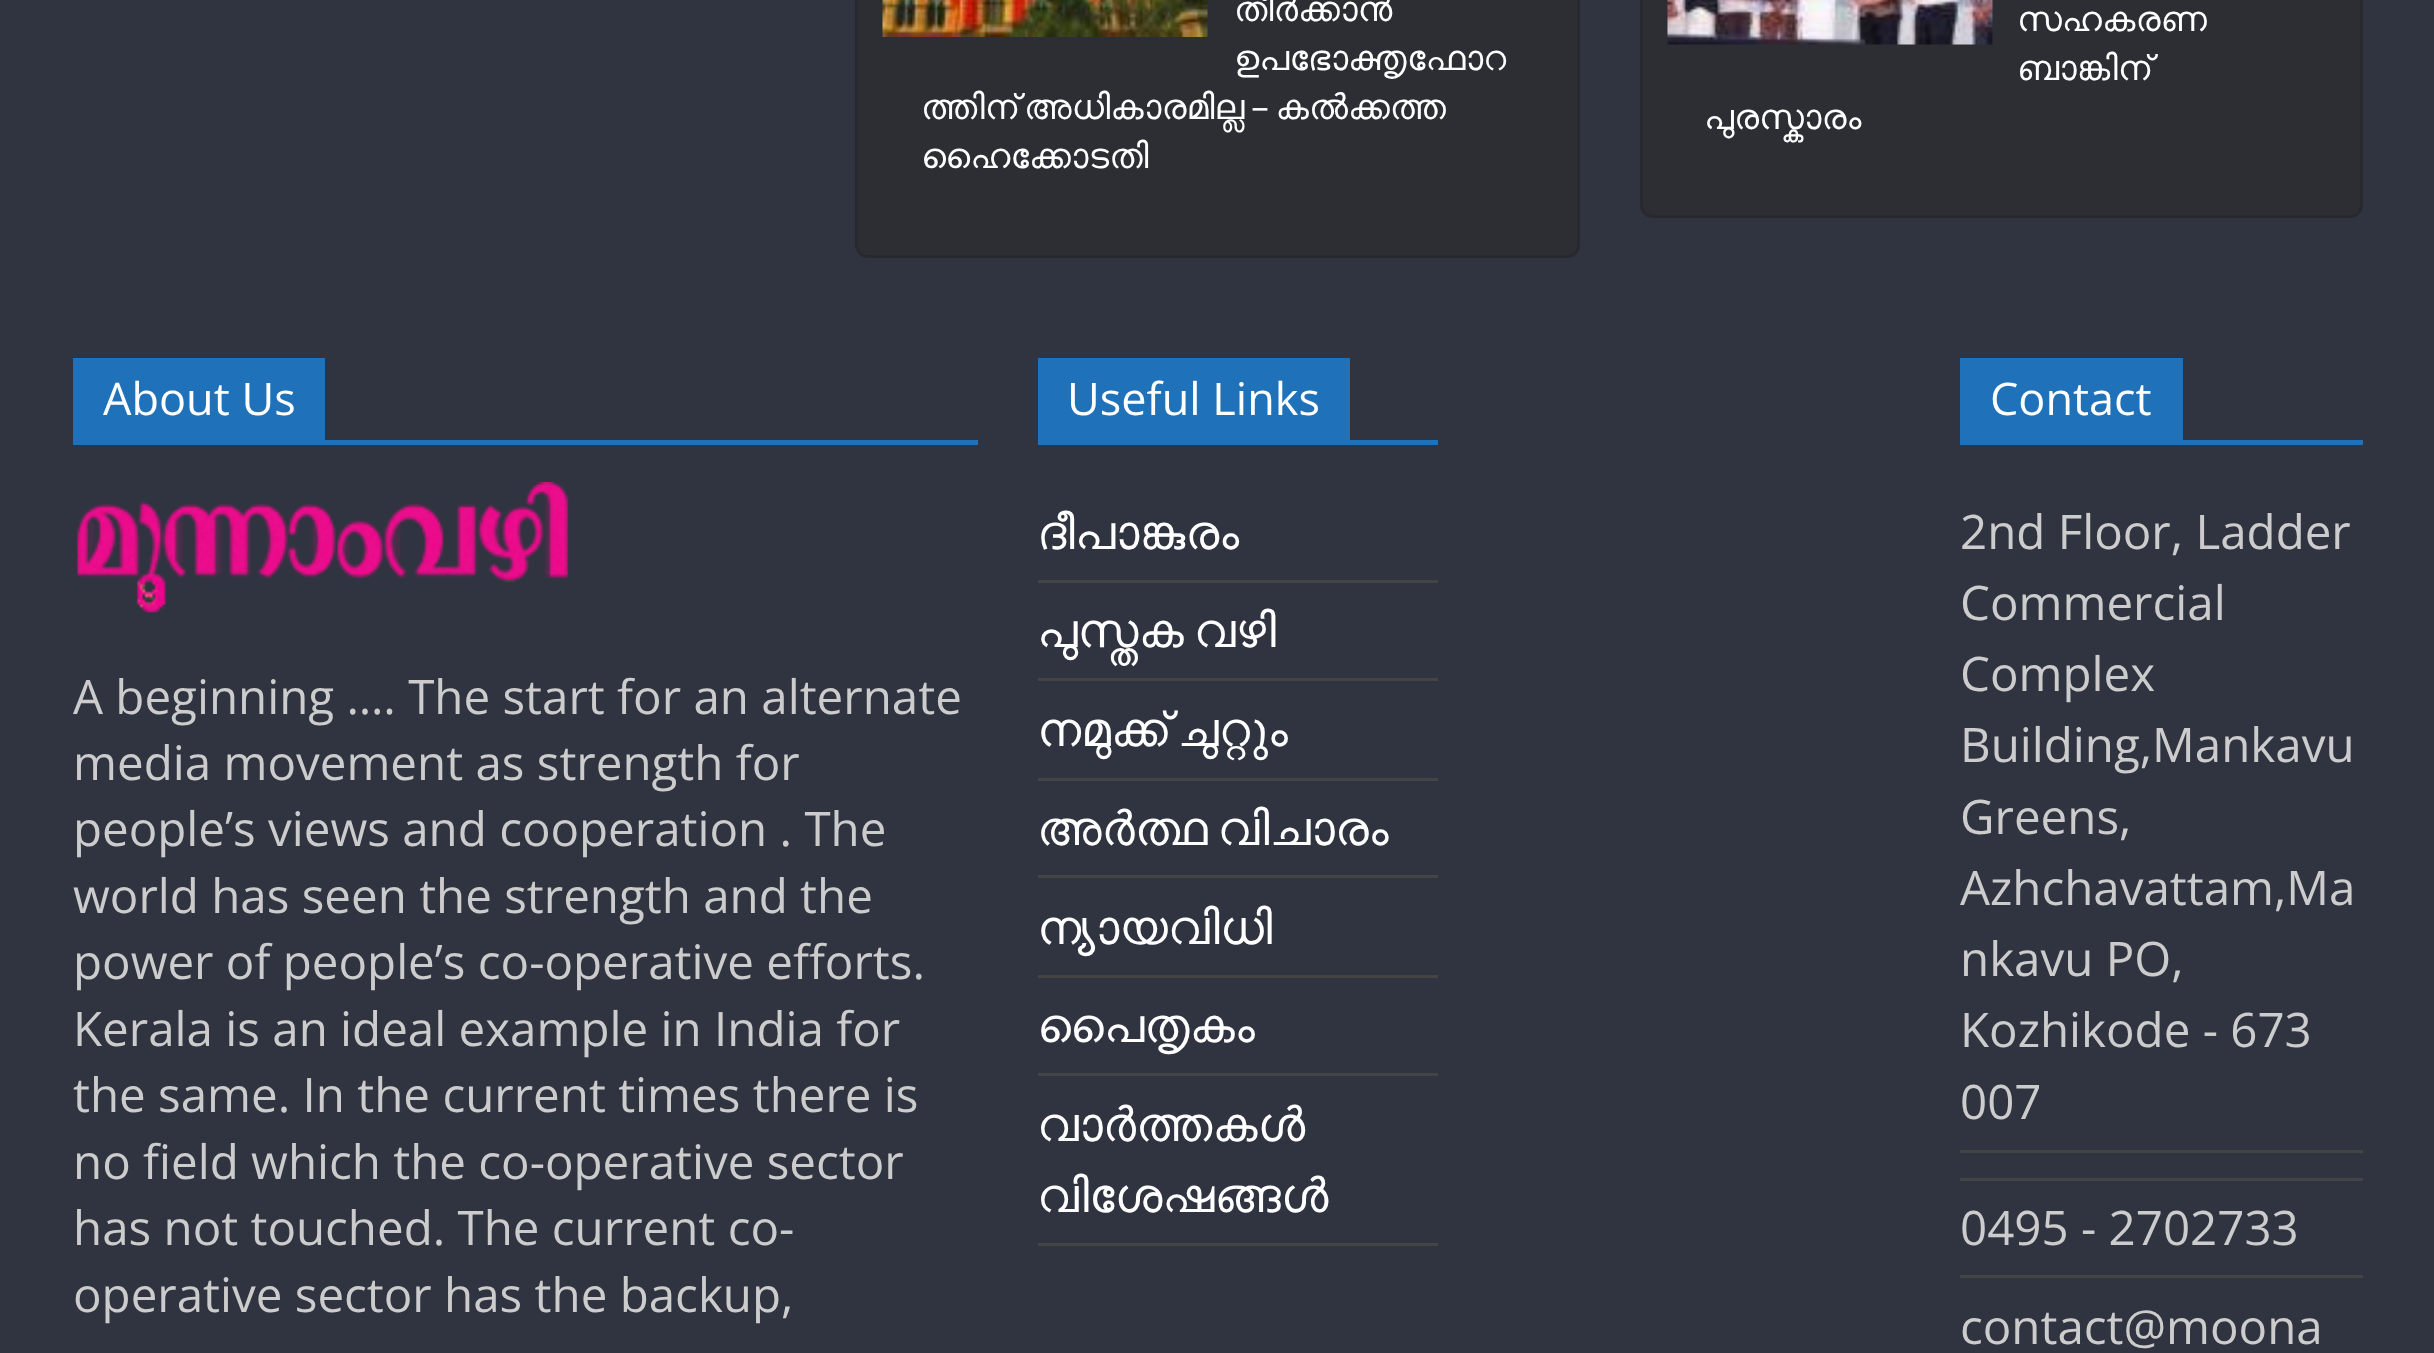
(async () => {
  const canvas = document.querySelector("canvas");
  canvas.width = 2434;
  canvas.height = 1353;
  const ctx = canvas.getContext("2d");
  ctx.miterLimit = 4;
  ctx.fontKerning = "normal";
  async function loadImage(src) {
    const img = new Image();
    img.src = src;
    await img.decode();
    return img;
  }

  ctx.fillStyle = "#303440";
  ctx.fillRect(0, 0, 2434, 1353);
  ctx.fillStyle = "#2c2e34";
  ctx.beginPath();
  ctx.roundRect(855, -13, 725, 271, 13);
  ctx.fill();
  ctx.beginPath();
  ctx.roundRect(856.5, -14.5, 722, 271, 11.5);
  ctx.strokeStyle = "rgba(0, 0, 0, 0.1)";
  ctx.lineWidth = 3;
  ctx.stroke();
  ctx.drawImage(await loadImage("img/1.png"), 882, 0, 326, 37);
  ctx.beginPath();
  ctx.roundRect(1640, -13, 723, 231, 13);
  ctx.fill();
  ctx.beginPath();
  ctx.roundRect(1641.5, -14.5, 720, 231, 11.5);
  ctx.stroke();
  ctx.drawImage(await loadImage("img/2.png"), 1667, 0, 326, 45);
  ctx.fillStyle = "#1f71ba";
  ctx.fillRect(73, 440, 905, 5);
  ctx.fillRect(73, 358, 252, 82);
  ctx.drawImage(await loadImage("img/3.png"), 76, 482, 493, 131);
  for (const [x, y, w, h, color] of [
    [1038, 440, 400, 5, "#1f71ba"],
    [1038, 358, 312, 82, "#1f71ba"],
    [1038, 580, 400, 3, "#444444"],
    [1038, 678, 400, 3, "#444444"],
    [1038, 778, 400, 3, "#444444"],
    [1038, 875, 400, 3, "#444444"],
    [1038, 975, 400, 3, "#444444"],
    [1038, 1073, 400, 3, "#444444"],
    [1038, 1243, 400, 3, "#444444"],
    [1960, 440, 403, 5, "#1f71ba"],
    [1960, 358, 223, 82, "#1f71ba"],
    [1960, 1150, 403, 3, "#444444"],
    [1960, 1178, 403, 3, "#444444"],
    [1960, 1275, 403, 3, "#444444"],
  ]) {
    ctx.fillStyle = color;
    ctx.fillRect(x, y, w, h);
  }
  ctx.font = "35px FreeSans";
  ctx.fillStyle = "#ffffff";
  ctx.fillText("തീര്‍ക്കാന്‍", 1234, 21);
  ctx.fillText("ഉപഭോക്തൃഫോറ", 1234, 70);
  ctx.wordSpacing = "-2px";
  ctx.fillText("ത്തിന് അധികാരമില്ല – കല്‍ക്കത്ത", 921, 119);
  ctx.wordSpacing = "0px";
  for (const [text, x, y] of [
    ["ഹൈക്കോടതി", 921, 168],
    ["സഹകരണ", 2017, 31],
    ["ബാങ്കിന്", 2017, 80],
    ["പുരസ്കാരം", 1704, 129],
  ]) {
    ctx.fillText(text, x, y);
  }
  ctx.font = "45px Open Sans";
  ctx.fillText("About Us", 103, 415);
  ctx.font = "47.5px Open Sans";
  ctx.fillStyle = "#cccccc";
  for (const [text, x, y] of [
    ["A beginning …. The start for an alternate", 73, 714],
    ["media movement as strength for", 73, 780],
    ["people’s views and cooperation . The", 73, 846],
    ["world has seen the strength and the", 73, 913],
    ["power of people’s co-operative efforts.", 73, 979],
    ["Kerala is an ideal example in India for", 73, 1046],
    ["the same. In the current times there is", 73, 1112],
    ["no field which the co-operative sector", 73, 1179],
    ["has not touched. The current co-", 73, 1245],
    ["operative sector has the backup,", 73, 1312],
  ]) {
    ctx.fillText(text, x, y);
  }
  ctx.font = "45px Open Sans";
  ctx.fillStyle = "#ffffff";
  ctx.fillText("Useful Links", 1067, 415);
  ctx.font = "47.5px FreeSans";
  ctx.fillText("ദീപാങ്കുരം", 1037, 549);
  ctx.wordSpacing = "-2px";
  for (const [text, x, y] of [
    ["പുസ്തക വഴി", 1037, 647],
    ["നമുക്ക് ചുറ്റും", 1037, 746],
    ["അർത്ഥ വിചാരം", 1037, 845],
  ]) {
    ctx.fillText(text, x, y);
  }
  ctx.wordSpacing = "0px";
  for (const [text, x, y] of [
    ["ന്യായവിധി", 1037, 944],
    ["പൈതൃകം", 1037, 1042],
    ["വാർത്തകൾ", 1037, 1141],
    ["വിശേഷങ്ങൾ", 1037, 1212],
  ]) {
    ctx.fillText(text, x, y);
  }
  ctx.font = "45px Open Sans";
  ctx.fillText("Contact", 1990, 415);
  ctx.font = "47.5px Open Sans";
  ctx.fillStyle = "#cccccc";
  for (const [text, x, y] of [
    ["2nd Floor, Ladder", 1960, 549],
    ["Commercial", 1960, 620],
    ["Complex", 1960, 691],
    ["Building,Mankavu", 1960, 762],
    ["Greens,", 1960, 834],
    ["Azhchavattam,Ma", 1960, 905],
    ["nkavu PO,", 1960, 976],
    ["Kozhikode - 673", 1960, 1047],
    ["007", 1960, 1119],
    ["0495 - 2702733", 1960, 1245],
    ["contact@moona", 1960, 1344],
  ]) {
    ctx.fillText(text, x, y);
  }
})();
